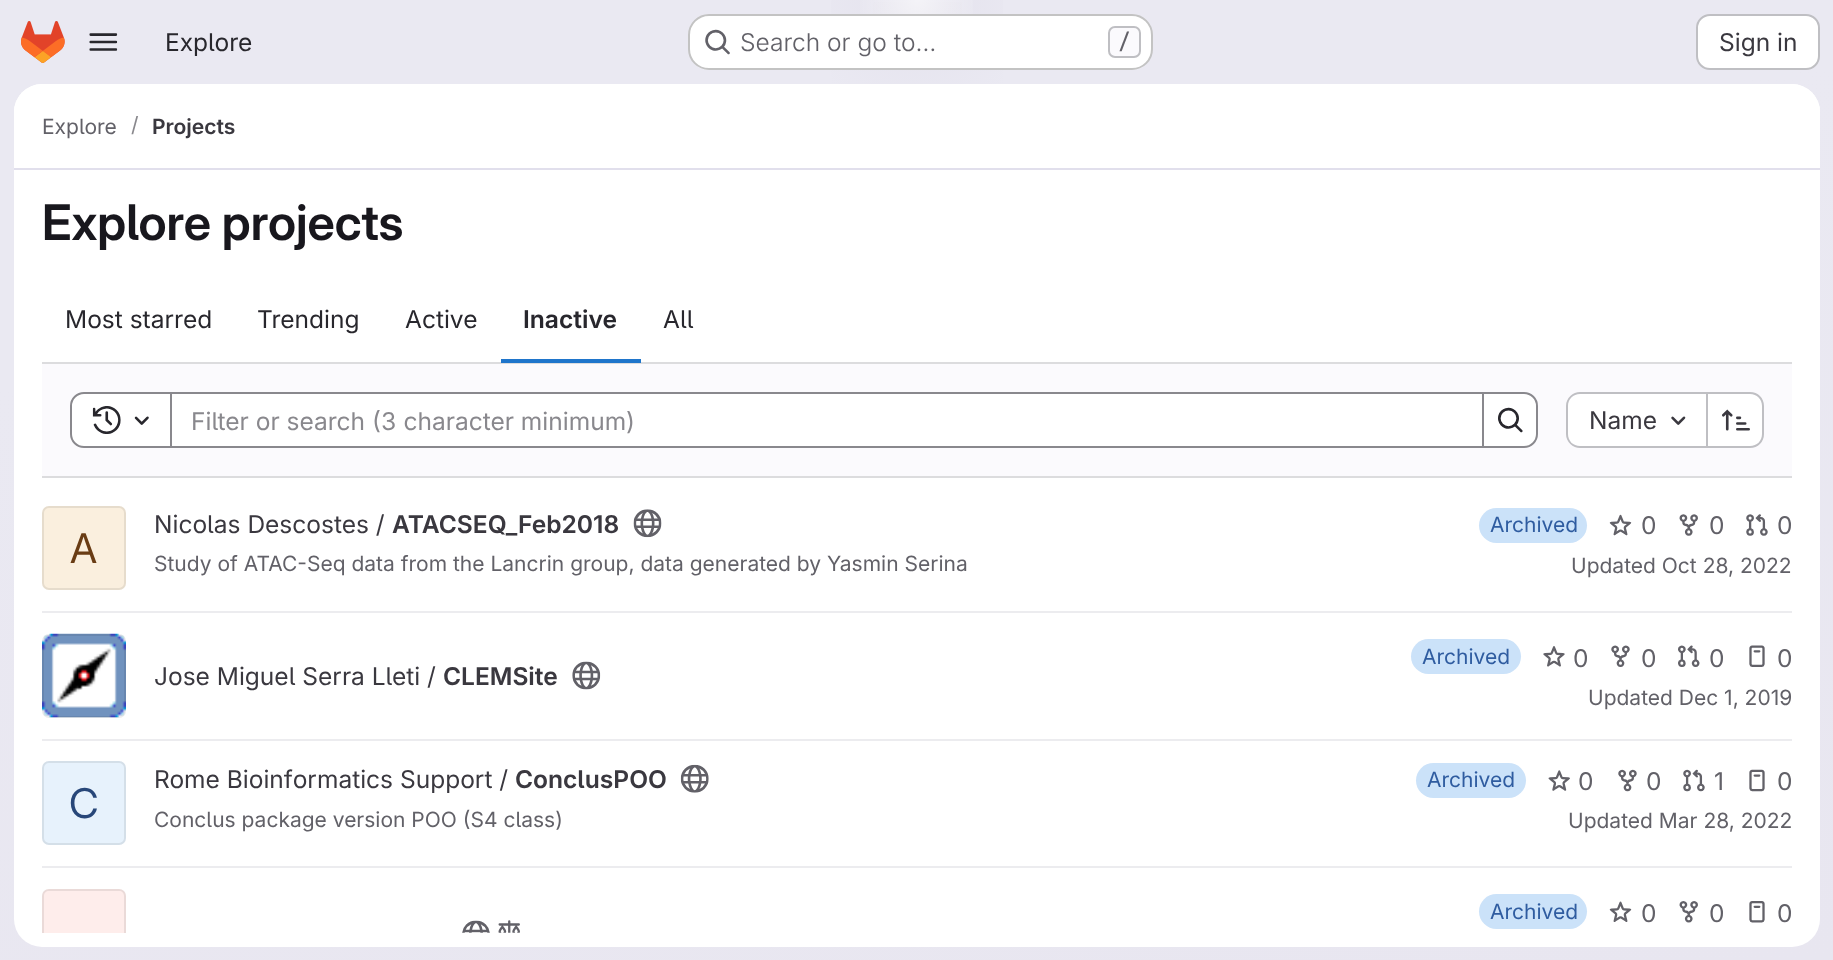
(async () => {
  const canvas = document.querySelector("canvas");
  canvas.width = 1833;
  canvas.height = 960;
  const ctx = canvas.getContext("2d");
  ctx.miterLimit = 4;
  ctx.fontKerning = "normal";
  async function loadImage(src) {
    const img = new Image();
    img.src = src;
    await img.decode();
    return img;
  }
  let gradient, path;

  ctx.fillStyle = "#ffffff";
  ctx.fillRect(0, 0, 1833, 960);
  gradient = ctx.createLinearGradient(1027, 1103, 807, -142);
  gradient.addColorStop(0, "#e8e6f0");
  gradient.addColorStop(0.7, "#eae9f2");
  ctx.fillStyle = gradient;
  ctx.fillRect(0, 0, 1833, 960);
  gradient = ctx.createRadialGradient(917, 0, 0, 917, 0, 917);
  gradient.addColorStop(0, "#e4e2ed");
  gradient.addColorStop(0.13, "rgba(228, 226, 237, 0)");
  ctx.fillStyle = gradient;
  ctx.beginPath();
  ctx.rect(831, 0, 172, 84);
  ctx.save();
  ctx.clip();
  ctx.scale(1, 961 / 917);
  ctx.fillRect(0, 0, 1833, 917);
  ctx.restore();
  gradient = ctx.createRadialGradient(917, 0, 0, 917, 0, 917);
  gradient.addColorStop(0, "#e4e2ec");
  gradient.addColorStop(0.1, "rgba(228, 226, 236, 0)");
  ctx.fillStyle = gradient;
  ctx.beginPath();
  ctx.rect(873, 2, 89, 45);
  ctx.save();
  ctx.clip();
  ctx.scale(1, 961 / 917);
  ctx.fillRect(0, 0, 1833, 917);
  ctx.restore();
  gradient = ctx.createRadialGradient(917, 0, 0, 917, 0, 1328);
  gradient.addColorStop(0, "rgba(255, 255, 255, 0.6)");
  gradient.addColorStop(0.05, "rgba(255, 255, 255, 0)");
  ctx.fillStyle = gradient;
  ctx.fillRect(860, 0, 113, 14);
  ctx.drawImage(await loadImage("img/1.png"), 21, 21, 44, 42);
  ctx.drawImage(await loadImage("img/2.png"), 89, 33, 29, 18);
  ctx.fillStyle = "#ffffff";
  ctx.beginPath();
  ctx.roundRect(688, 14, 465, 56, 21);
  ctx.fill();
  ctx.beginPath();
  ctx.roundRect(689, 15, 463, 54, 20);
  ctx.strokeStyle = "rgba(5, 5, 6, 0.24)";
  ctx.lineWidth = 2;
  ctx.stroke();
  ctx.drawImage(await loadImage("img/3.png"), 705, 29, 25, 26);
  ctx.fillStyle = "#fbfafd";
  ctx.beginPath();
  ctx.roundRect(1109, 27, 31, 30, 6);
  ctx.fill();
  ctx.strokeStyle = "#bfbfc3";
  ctx.stroke();
  ctx.fillStyle = "#ffffff";
  ctx.beginPath();
  ctx.roundRect(1697, 15, 122, 54, 13);
  ctx.fill();
  ctx.stroke();
  ctx.beginPath();
  ctx.roundRect(14, 84, 1806, 863, 28);
  ctx.fill();
  ctx.beginPath();
  ctx.roundRect(14, 84, 1806, 86, [28, 28, 0, 0]);
  ctx.fill();
  for (const [x, y, w, h, color] of [
    [14, 168, 1806, 2, "#e1dfec"],
    [42, 362, 1750, 2, "#dcdcde"],
    [501, 359, 140, 4, "#1f75cb"],
    [42, 364, 1750, 112, "#fbfafd"],
    [42, 476, 1750, 2, "#dcdcde"],
  ]) {
    ctx.fillStyle = color;
    ctx.fillRect(x, y, w, h);
  }
  ctx.fillStyle = "#ffffff";
  ctx.beginPath();
  ctx.rect(171, 393, 1312, 54);
  ctx.fill();
  ctx.strokeStyle = "#89888d";
  ctx.stroke();
  ctx.beginPath();
  ctx.roundRect(71, 393, 100, 54, [13, 0, 0, 13]);
  ctx.fill();
  ctx.stroke();
  ctx.drawImage(await loadImage("img/4.png"), 92, 406, 29, 28);
  ctx.drawImage(await loadImage("img/5.png"), 134, 416, 15, 9);
  ctx.beginPath();
  ctx.roundRect(1483, 393, 54, 54, [0, 13, 13, 0]);
  ctx.fill();
  ctx.stroke();
  ctx.drawImage(await loadImage("img/6.png"), 1498, 407, 25, 26);
  ctx.beginPath();
  ctx.roundRect(1568, 394, 138, 52, [12, 0, 0, 12]);
  ctx.fill();
  ctx.fillStyle = "#bfbfc3";
  path = new Path2D("M1580 392H1706V448H1580C1573 448 1566 442 1566 434V406C1566 398 1573 392 1580 392ZM1580 394H1706V446H1580C1573 446 1568 441 1568 434V406C1568 399 1573 394 1580 394Z");
  ctx.fill(path, "evenodd");
  ctx.drawImage(await loadImage("img/7.png"), 1671, 416, 15, 9);
  ctx.fillStyle = "#ffffff";
  ctx.beginPath();
  ctx.roundRect(1708, 394, 54, 52, [0, 12, 12, 0]);
  ctx.fill();
  ctx.fillStyle = "#bfbfc3";
  path = new Path2D("M1708 392H1750C1758 392 1764 398 1764 406V434C1764 442 1758 448 1750 448H1708ZM1708 394H1750C1757 394 1762 399 1762 406V434C1762 441 1757 446 1750 446H1708Z");
  ctx.fill(path, "evenodd");
  ctx.fillRect(1706, 392, 2, 56);
  ctx.drawImage(await loadImage("img/8.png"), 1722, 409, 28, 22);
  ctx.fillStyle = "#ececef";
  ctx.fillRect(42, 611, 1750, 2);
  ctx.fillStyle = "#faefde";
  ctx.beginPath();
  ctx.roundRect(42, 506, 84, 84, 7);
  ctx.fill();
  ctx.beginPath();
  ctx.roundRect(43, 507, 82, 82, 6);
  ctx.strokeStyle = "rgba(5, 5, 6, 0.08)";
  ctx.stroke();
  ctx.drawImage(await loadImage("img/9.png"), 633, 509, 29, 29);
  ctx.fillStyle = "#cbe2f9";
  ctx.beginPath();
  ctx.roundRect(1479, 508, 108, 35, 17.5);
  ctx.fill();
  ctx.drawImage(await loadImage("img/10.png"), 1609, 514, 23, 22);
  ctx.drawImage(await loadImage("img/11.png"), 1679, 514, 19, 22);
  ctx.drawImage(await loadImage("img/12.png"), 1746, 514, 22, 22);
  ctx.fillStyle = "#ececef";
  ctx.fillRect(42, 739, 1750, 2);
  ctx.drawImage(await loadImage("img/13.png"), 42, 633, 84, 85);
  ctx.beginPath();
  ctx.roundRect(43, 635, 82, 82, 6);
  ctx.stroke();
  ctx.drawImage(await loadImage("img/14.png"), 572, 661, 29, 29);
  ctx.fillStyle = "#cbe2f9";
  ctx.beginPath();
  ctx.roundRect(1411, 639, 110, 35, 17.5);
  ctx.fill();
  ctx.drawImage(await loadImage("img/15.png"), 1543, 646, 22, 21);
  ctx.drawImage(await loadImage("img/16.png"), 1611, 645, 19, 22);
  ctx.drawImage(await loadImage("img/17.png"), 1678, 645, 22, 22);
  ctx.drawImage(await loadImage("img/18.png"), 1749, 645, 16, 22);
  ctx.fillStyle = "#ececef";
  ctx.fillRect(42, 866, 1750, 2);
  ctx.fillStyle = "#e7f2fc";
  ctx.beginPath();
  ctx.roundRect(42, 761, 84, 84, 7);
  ctx.fill();
  ctx.beginPath();
  ctx.roundRect(43, 762, 82, 82, 6);
  ctx.stroke();
  ctx.drawImage(await loadImage("img/19.png"), 680, 764, 29, 29);
  ctx.fillStyle = "#cbe2f9";
  ctx.beginPath();
  ctx.roundRect(1416, 763, 110, 35, 17.5);
  ctx.fill();
  ctx.drawImage(await loadImage("img/20.png"), 1548, 770, 22, 21);
  ctx.drawImage(await loadImage("img/21.png"), 1618, 769, 19, 23);
  ctx.drawImage(await loadImage("img/22.png"), 1683, 769, 22, 23);
  ctx.drawImage(await loadImage("img/23.png"), 1749, 769, 16, 23);
  ctx.fillStyle = "#feedeb";
  ctx.beginPath();
  ctx.roundRect(42, 889, 84, 44, [7, 7, 0, 0]);
  ctx.fill();
  ctx.save();
  ctx.beginPath();
  ctx.rect(14, 170, 1806, 763);
  ctx.clip();
  ctx.fillStyle = "rgba(5, 5, 6, 0.08)";
  path = new Path2D("M49 889C45 889 42 892 42 896V947H44V896C44 893 46 891 49 891H119C122 891 124 893 124 896V947H126V896C126 892 123 889 119 889Z");
  ctx.fill(path);
  ctx.restore();
  ctx.fillStyle = "#cbe2f9";
  ctx.beginPath();
  ctx.roundRect(1479, 894, 108, 35, 17.5);
  ctx.fill();
  ctx.drawImage(await loadImage("img/24.png"), 1609, 901, 23, 21);
  ctx.drawImage(await loadImage("img/25.png"), 1679, 901, 19, 22);
  ctx.drawImage(await loadImage("img/26.png"), 1749, 901, 16, 22);
  ctx.drawImage(await loadImage("img/27.png"), 462, 920, 28, 13);
  ctx.drawImage(await loadImage("img/28.png"), 498, 920, 22, 13);
  ctx.font = "24.5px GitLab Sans";
  ctx.fillStyle = "#28272d";
  ctx.fillText("Explore", 165, 51);
  ctx.font = "300 24.5px GitLab Sans";
  ctx.fillStyle = "#626168";
  ctx.fillText("Search or go to…", 740, 51);
  ctx.font = "500 21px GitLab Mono";
  ctx.fillText("/", 1118, 49);
  ctx.font = "24.5px GitLab Sans";
  ctx.fillStyle = "#3a383f";
  ctx.fillText("Sign in", 1719, 51);
  ctx.font = "21px GitLab Sans";
  ctx.fillStyle = "#626168";
  ctx.fillText("Explore", 42, 134);
  ctx.fillStyle = "#89888d";
  ctx.fillText("/", 131, 132);
  ctx.font = "600 21px 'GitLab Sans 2'";
  ctx.fillStyle = "#3a383f";
  ctx.fillText("Projects", 152, 134);
  ctx.font = "600 49px GitLab Sans";
  ctx.fillStyle = "#18171d";
  ctx.fillText("Explore projects", 42, 240);
  ctx.font = "24.5px GitLab Sans";
  ctx.fillStyle = "#28272d";
  for (const [text, x, y] of [
    ["Most starred", 65, 328],
    ["Trending", 257, 328],
    ["Active", 405, 328],
  ]) {
    ctx.fillText(text, x, y);
  }
  ctx.font = "600 24.5px 'GitLab Sans 2'";
  ctx.fillText("Inactive", 523, 328);
  ctx.font = "24.5px GitLab Sans";
  ctx.fillText("All", 663, 328);
  ctx.fillStyle = "#89888d";
  ctx.fillText("Filter or search (3 character minimum)", 191, 430);
  ctx.fillStyle = "#3a383f";
  ctx.fillText("Name", 1589, 429);
  ctx.font = "41px 'GitLab Sans 2'";
  ctx.fillStyle = "#693c14";
  ctx.fillText("A", 70, 563);
  ctx.font = "24.5px GitLab Sans";
  ctx.fillStyle = "#3a383f";
  ctx.fillText("Nicolas Descostes /", 154, 533);
  ctx.font = "600 24.5px 'GitLab Sans 2'";
  ctx.fillText("ATACSEQ_Feb2018", 392, 533);
  ctx.font = "21px GitLab Sans";
  ctx.fillStyle = "#626168";
  ctx.fillText("Study of ATAC-Seq data from the Lancrin group, data generated by Yasmin Serina", 154, 571);
  ctx.fillStyle = "#2f5ca0";
  ctx.fillText("Archived", 1490, 532);
  ctx.font = "24.5px GitLab Sans";
  ctx.fillStyle = "#626168";
  for (const [text, x, y] of [
    ["0", 1641, 534],
    ["0", 1709, 534],
    ["0", 1777, 534],
  ]) {
    ctx.fillText(text, x, y);
  }
  ctx.font = "21px GitLab Sans";
  ctx.fillText("Updated Oct 28, 2022", 1571, 573);
  ctx.font = "24.5px GitLab Sans";
  ctx.fillStyle = "#3a383f";
  ctx.fillText("Jose Miguel Serra Lleti /", 154, 685);
  ctx.font = "600 24.5px 'GitLab Sans 2'";
  ctx.fillText("CLEMSite", 443, 685);
  ctx.font = "21px GitLab Sans";
  ctx.fillStyle = "#2f5ca0";
  ctx.fillText("Archived", 1422, 664);
  ctx.font = "24.5px GitLab Sans";
  ctx.fillStyle = "#626168";
  for (const [text, x, y] of [
    ["0", 1573, 667],
    ["0", 1641, 667],
    ["0", 1709, 667],
    ["0", 1777, 667],
  ]) {
    ctx.fillText(text, x, y);
  }
  ctx.font = "21px GitLab Sans";
  ctx.fillText("Updated Dec 1, 2019", 1588, 705);
  ctx.font = "41px 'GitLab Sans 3'";
  ctx.fillStyle = "#284779";
  ctx.fillText("C", 69, 818);
  ctx.font = "24.5px GitLab Sans";
  ctx.fillStyle = "#3a383f";
  ctx.fillText("Rome Bioinformatics Support /", 154, 788);
  ctx.font = "600 24.5px 'GitLab Sans 2'";
  ctx.fillText("ConclusPOO", 515, 788);
  ctx.font = "21px GitLab Sans";
  ctx.fillStyle = "#626168";
  ctx.fillText("Conclus package version POO (S4 class)", 154, 827);
  ctx.fillStyle = "#2f5ca0";
  ctx.fillText("Archived", 1427, 787);
  ctx.font = "24.5px GitLab Sans";
  ctx.fillStyle = "#626168";
  for (const [text, x, y] of [
    ["0", 1578, 790],
    ["0", 1646, 790],
    ["1", 1714, 790],
    ["0", 1777, 790],
  ]) {
    ctx.fillText(text, x, y);
  }
  ctx.font = "21px GitLab Sans";
  ctx.fillText("Updated Mar 28, 2022", 1568, 828);
  ctx.fillStyle = "#2f5ca0";
  ctx.fillText("Archived", 1490, 919);
  ctx.font = "24.5px GitLab Sans";
  ctx.fillStyle = "#626168";
  for (const [text, x, y] of [
    ["0", 1641, 922],
    ["0", 1709, 922],
    ["0", 1777, 922],
  ]) {
    ctx.fillText(text, x, y);
  }
})();
